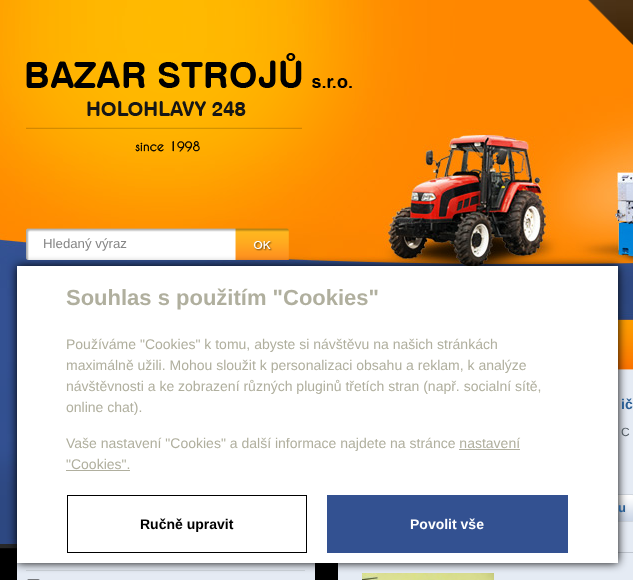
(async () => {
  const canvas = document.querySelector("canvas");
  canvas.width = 633;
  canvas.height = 580;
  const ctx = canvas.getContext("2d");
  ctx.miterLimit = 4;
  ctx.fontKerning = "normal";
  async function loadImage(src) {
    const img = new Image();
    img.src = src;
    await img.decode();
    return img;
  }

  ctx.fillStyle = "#000000";
  ctx.fillRect(0, 0, 633, 580);
  ctx.drawImage(await loadImage("img/1.png"), 0, 330, 17, 219);
  ctx.drawImage(await loadImage("img/2.png"), 0, 0, 633, 330);
  ctx.drawImage(await loadImage("img/3.png"), 588, 0, 45, 45);
  ctx.drawImage(await loadImage("img/4.png"), 26, 53, 326, 99);
  ctx.drawImage(await loadImage("img/5.png"), 26, 228, 209, 32);
  ctx.drawImage(await loadImage("img/6.png"), 235, 228, 54, 32);
  ctx.drawImage(await loadImage("img/7.png"), 7, 330, 10, 218);
  ctx.drawImage(await loadImage("img/8.png"), 618, 320, 15, 56);
  ctx.fillStyle = "#e5ebf4";
  ctx.fillRect(338, 376, 295, 204);
  ctx.fillStyle = "#bfc5ce";
  ctx.fillRect(618, 552, 15, 1);
  ctx.drawImage(await loadImage("img/9.png"), 618, 494, 15, 28);
  ctx.drawImage(await loadImage("img/10.png"), 362, 573, 132, 7);
  ctx.fillStyle = "#e5ebf4";
  ctx.fillRect(17, 563, 298, 17);
  ctx.fillStyle = "#cfd5dc";
  ctx.fillRect(26, 570, 279, 1);
  ctx.drawImage(await loadImage("img/11.png"), 27, 579, 13, 1);
  ctx.fillStyle = "#000000";
  ctx.filter = "blur(5px)";
  ctx.beginPath();
  ctx.rect(17, 266, 601, 297);
  ctx.fill();
  ctx.filter = "none";
  for (const [x, y, w, h, color] of [
    [17, 266, 601, 297, "#ffffff"],
    [459, 449, 61, 1, "#b0af9e"],
    [66, 470, 64, 1, "#b0af9e"],
  ]) {
    ctx.fillStyle = color;
    ctx.fillRect(x, y, w, h);
  }
  ctx.strokeStyle = "#000000";
  ctx.strokeRect(67.5, 495.5, 239, 57);
  ctx.fillStyle = "#335191";
  ctx.fillRect(327, 495, 241, 58);
  ctx.font = "13.25px Liberation Sans";
  ctx.fillStyle = "#868686";
  ctx.fillText("Hledaný výraz", 43, 248);
  ctx.font = "bold 14px Liberation Sans";
  ctx.fillStyle = "#285d93";
  ctx.fillText("ič", 621, 409);
  ctx.font = "12px Liberation Sans";
  ctx.fillStyle = "#515a60";
  ctx.fillText("C", 621, 436);
  ctx.font = "bold 13px Liberation Sans";
  ctx.fillStyle = "#285d93";
  ctx.fillText("u", 618, 512);
  ctx.font = "bold 22px Liberation Sans";
  ctx.fillStyle = "#b0af9e";
  ctx.fillText("Souhlas s použitím \"Cookies\"", 66, 305);
  ctx.font = "14px Liberation Sans";
  for (const [text, x, y] of [
    ["Používáme \"Cookies\" k tomu, abyste si návštěvu na našich stránkách", 66, 349],
    ["maximálně užili. Mohou sloužit k personalizaci obsahu a reklam, k analýze", 66, 370],
    ["návštěvnosti a ke zobrazení různých pluginů třetích stran (např. socialní sítě,", 66, 391],
    ["online chat).", 66, 412],
    ["Vaše nastavení \"Cookies\" a další informace najdete na stránce nastavení", 66, 448],
    ["\"Cookies\".", 66, 469],
  ]) {
    ctx.fillText(text, x, y);
  }
  ctx.font = "bold 14px Liberation Sans";
  ctx.fillStyle = "#000000";
  ctx.fillText("Ručně upravit", 140, 529);
  ctx.fillStyle = "#ffffff";
  ctx.fillText("Povolit vše", 410, 529);
})();
